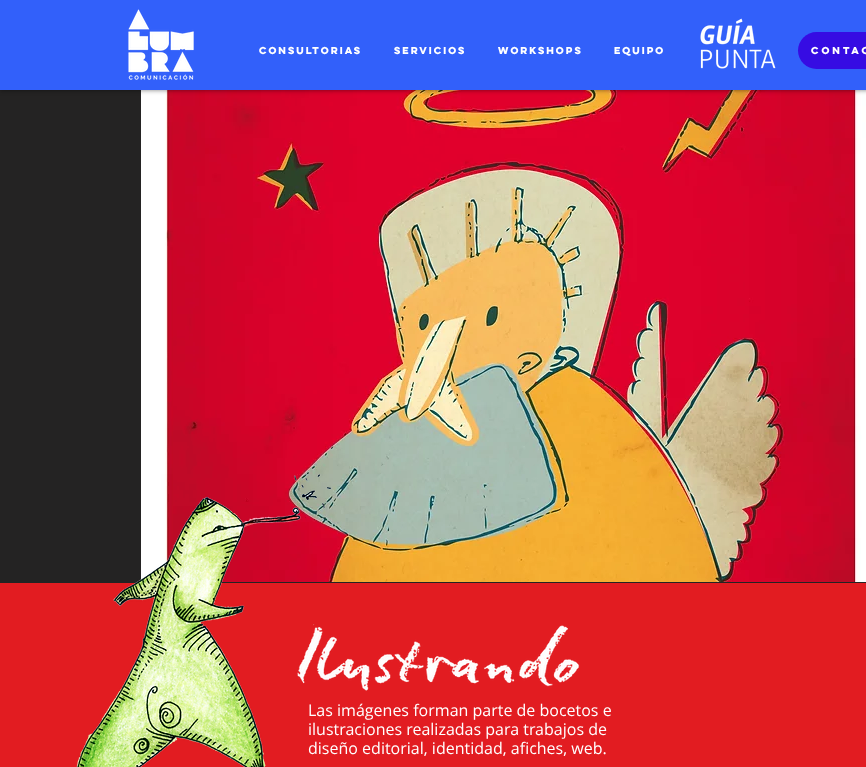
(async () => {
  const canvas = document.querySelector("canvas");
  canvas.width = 866;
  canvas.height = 767;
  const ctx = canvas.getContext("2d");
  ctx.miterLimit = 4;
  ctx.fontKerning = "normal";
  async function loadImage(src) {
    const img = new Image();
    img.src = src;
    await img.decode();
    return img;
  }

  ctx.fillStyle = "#242323";
  ctx.fillRect(0, 0, 866, 767);
  ctx.drawImage(await loadImage("img/3.png"), 141, 90, 725, 492);
  ctx.fillStyle = "rgba(0, 0, 0, 0.5)";
  ctx.filter = "blur(2.5px)";
  ctx.beginPath();
  ctx.rect(0, 0, 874, 90);
  ctx.fill();
  ctx.filter = "none";
  ctx.fillStyle = "#3260fa";
  ctx.fillRect(0, 0, 866, 90);
  ctx.drawImage(await loadImage("img/1.png"), 128, 9, 66, 71);
  ctx.drawImage(await loadImage("img/2.png"), 700, 18, 76, 51);
  ctx.fillStyle = "#360ce3";
  ctx.beginPath();
  ctx.roundRect(798, 32, 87, 37, 18.5);
  ctx.fill();
  ctx.fillStyle = "#e21c21";
  ctx.fillRect(0, 583, 866, 184);
  ctx.drawImage(await loadImage("img/5.png"), 297, 625, 283, 66);
  ctx.font = "bold 9px 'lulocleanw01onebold'";
  ctx.fillStyle = "#ffffff";
  for (const [text, x, y] of [
    ["CONSULTORIAS", 259, 54],
    ["SERVICIOS", 394, 54],
    ["WORKSHOPS", 498, 54],
    ["EQUIPO", 614, 54],
  ]) {
    ctx.fillText(text, x, y);
  }
  ctx.letterSpacing = "1px";
  ctx.fillText("contac", 811, 54);
  ctx.letterSpacing = "0px";
  ctx.font = "16px Open Sans";
  for (const [text, x, y] of [
    ["Las imágenes forman parte de bocetos e", 308, 716],
    ["ilustraciones realizadas para trabajos de", 308, 735],
    ["diseño editorial, identidad, afiches, web.", 308, 754],
  ]) {
    ctx.fillText(text, x, y);
  }
  ctx.drawImage(await loadImage("img/4.png"), 76, 474, 256, 293);
})();
